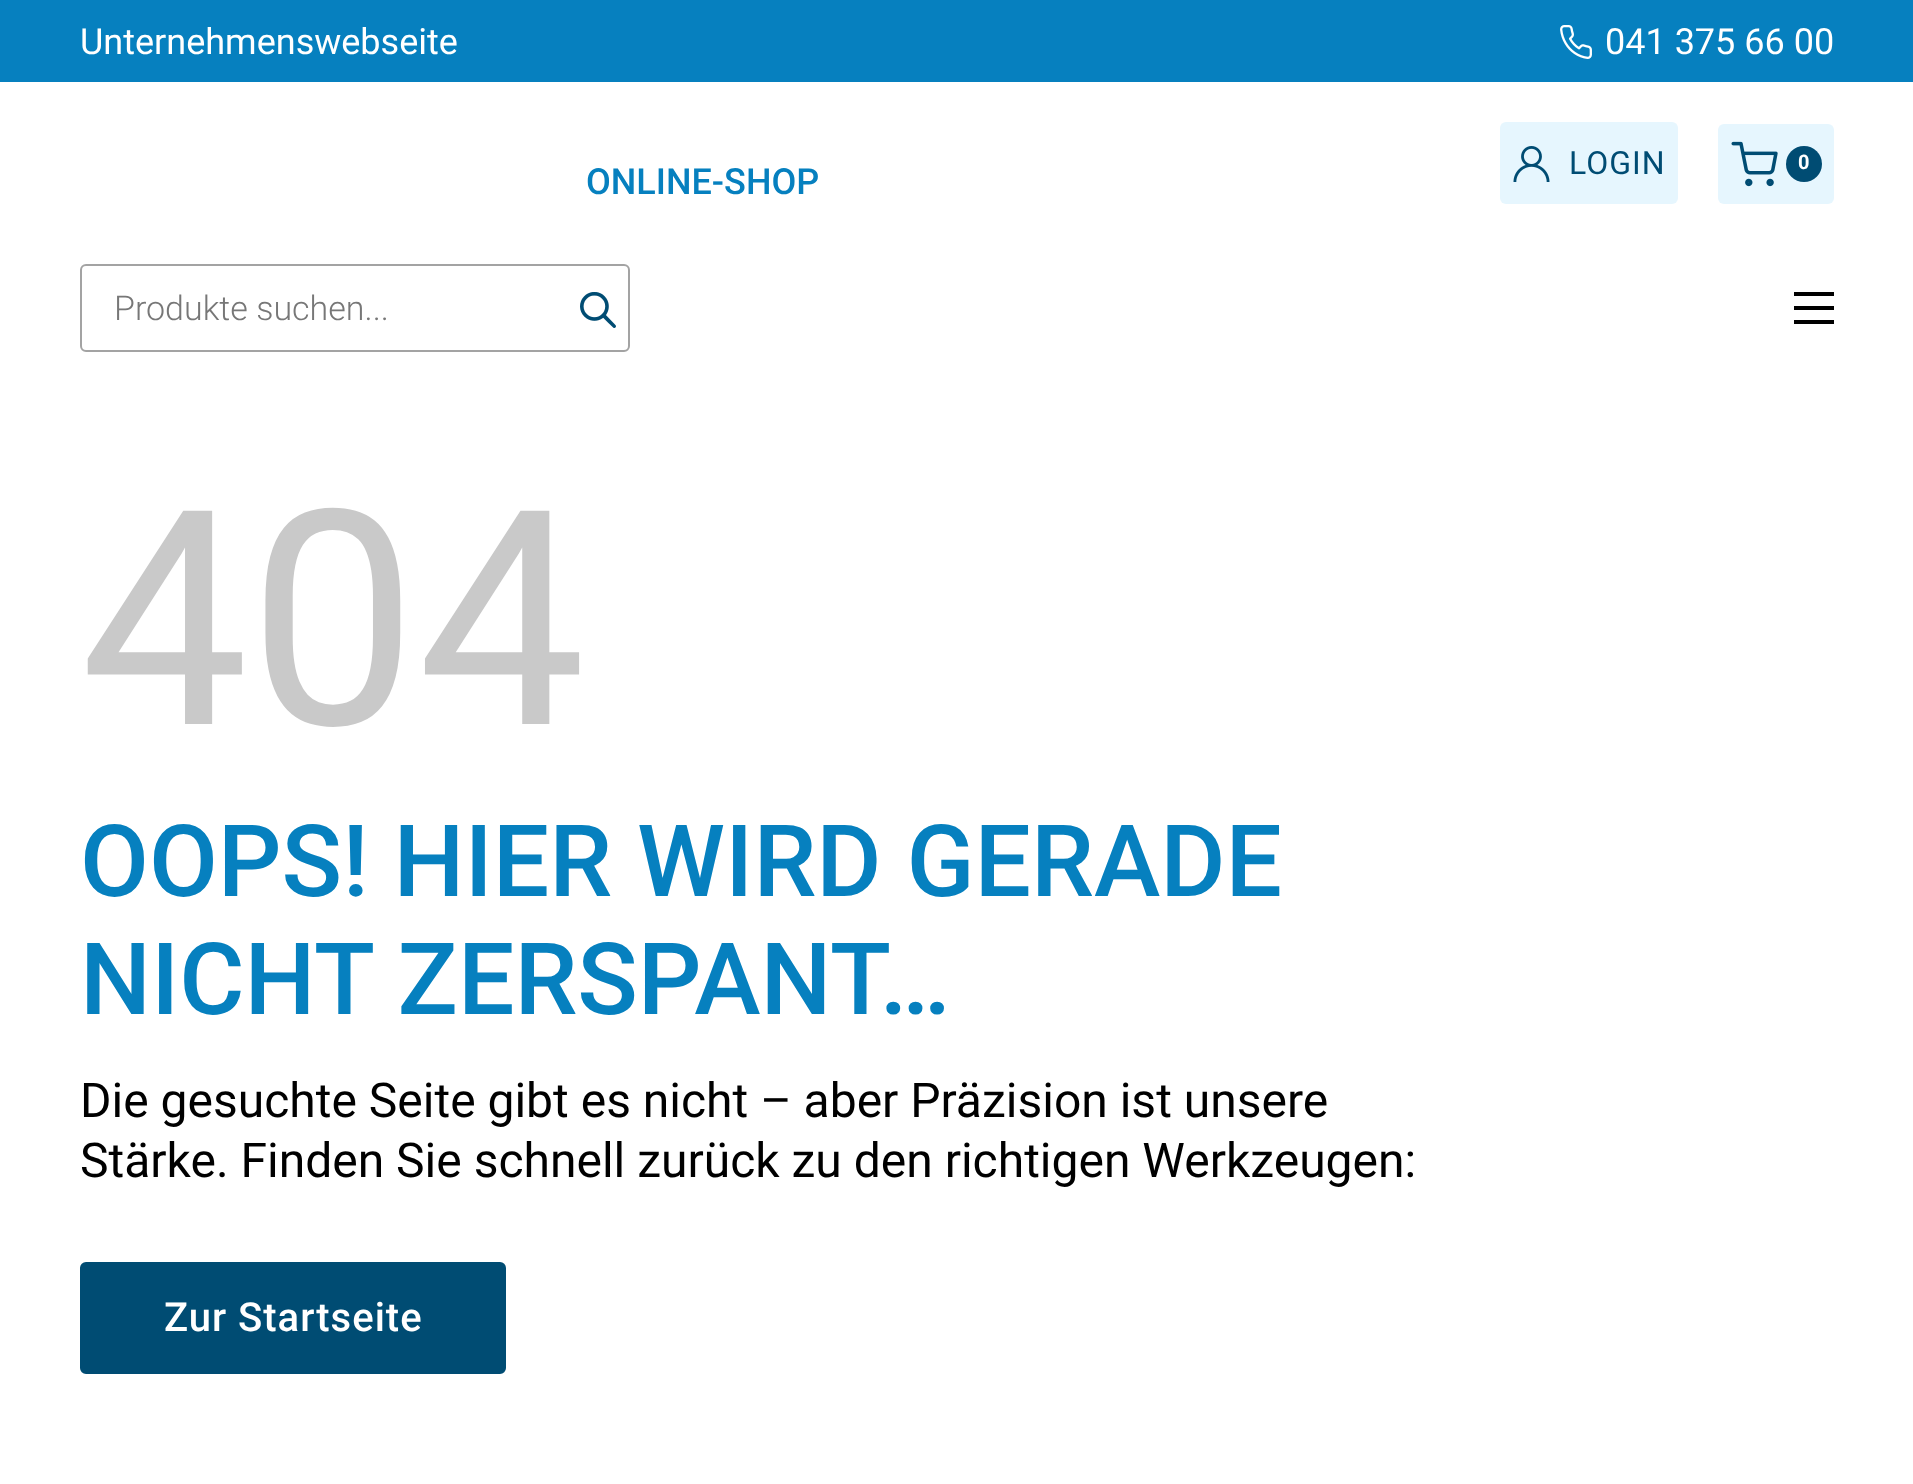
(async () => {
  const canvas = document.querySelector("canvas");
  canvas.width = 1913;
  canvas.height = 1484;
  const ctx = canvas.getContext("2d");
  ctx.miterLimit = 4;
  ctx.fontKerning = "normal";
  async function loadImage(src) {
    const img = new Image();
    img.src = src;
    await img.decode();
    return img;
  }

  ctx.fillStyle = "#ffffff";
  ctx.fillRect(0, 0, 1913, 1484);
  ctx.fillStyle = "#0680bf";
  ctx.fillRect(0, 0, 1913, 82);
  ctx.drawImage(await loadImage("img/1.png"), 1560, 25, 32, 34);
  ctx.fillStyle = "#e6f6fe";
  ctx.beginPath();
  ctx.roundRect(1500, 122, 178, 82, 6);
  ctx.fill();
  ctx.drawImage(await loadImage("img/2.png"), 1513, 146, 37, 36);
  ctx.beginPath();
  ctx.roundRect(1718, 124, 116, 80, 6);
  ctx.fill();
  ctx.drawImage(await loadImage("img/3.png"), 1731, 141, 47, 46);
  ctx.fillStyle = "#004c73";
  ctx.beginPath();
  ctx.arc(1804, 164, 18, 0, Math.PI * 2);
  ctx.fill();
  ctx.beginPath();
  ctx.roundRect(81, 265, 548, 86, 5);
  ctx.strokeStyle = "#a3a3a3";
  ctx.lineWidth = 2;
  ctx.stroke();
  ctx.drawImage(await loadImage("img/4.png"), 580, 292, 36, 36);
  for (const [x, y, w, h, color] of [
    [1794, 292, 40, 4, "#000000"],
    [1794, 306, 40, 4, "#000000"],
    [1794, 320, 40, 4, "#000000"],
  ]) {
    ctx.fillStyle = color;
    ctx.fillRect(x, y, w, h);
  }
  ctx.fillStyle = "#004c73";
  ctx.beginPath();
  ctx.roundRect(82, 1264, 422, 108, 4);
  ctx.fill();
  ctx.strokeStyle = "#004c73";
  ctx.lineWidth = 4;
  ctx.stroke();
  ctx.font = "36px Roboto";
  ctx.fillStyle = "#ffffff";
  ctx.fillText("Unternehmenswebseite", 80, 54);
  ctx.fillText("041 375 66 00", 1605, 54);
  ctx.letterSpacing = "1px";
  ctx.font = "32px Roboto";
  ctx.fillStyle = "#004c73";
  ctx.fillText("LOGIN", 1569, 174);
  ctx.letterSpacing = "0px";
  ctx.font = "bold 20px Roboto";
  ctx.fillStyle = "#ffffff";
  ctx.fillText("0", 1798, 169);
  ctx.font = "500 36px Roboto";
  ctx.fillStyle = "#0680bf";
  ctx.fillText("ONLINE-SHOP", 586, 194);
  ctx.font = "300 34px Roboto";
  ctx.fillStyle = "#777777";
  ctx.fillText("Produkte suchen...", 114, 320);
  ctx.font = "300px Roboto";
  ctx.fillStyle = "#c9c9c9";
  ctx.fillText("404", 80, 724);
  ctx.font = "500 100px Roboto";
  ctx.fillStyle = "#0680bf";
  ctx.fillText("OOPS! HIER WIRD GERADE", 80, 896);
  ctx.fillText("NICHT ZERSPANT…", 80, 1014);
  ctx.font = "48px Roboto";
  ctx.fillStyle = "#000000";
  ctx.fillText("Die gesuchte Seite gibt es nicht – aber Präzision ist unsere", 80, 1117);
  ctx.fillText("Stärke. Finden Sie schnell zurück zu den richtigen Werkzeugen:", 80, 1177);
  ctx.letterSpacing = "1px";
  ctx.font = "500 40px Roboto";
  ctx.fillStyle = "#ffffff";
  ctx.fillText("Zur Startseite", 164, 1331);
})();
